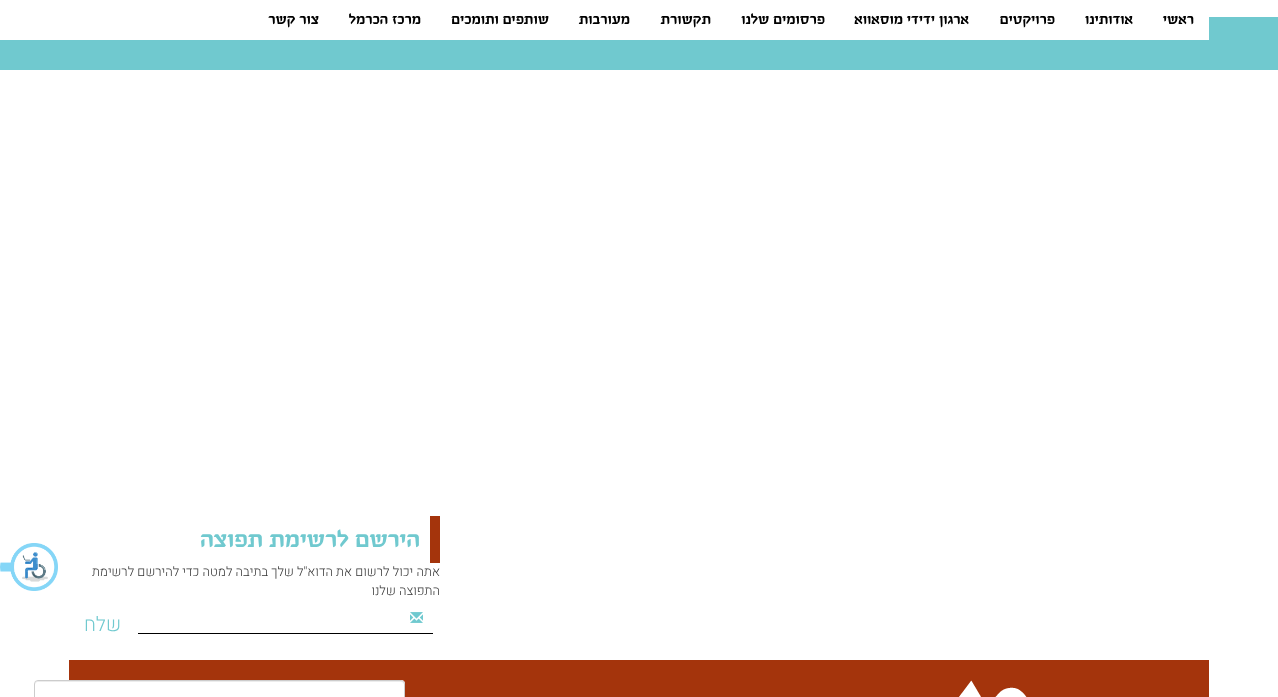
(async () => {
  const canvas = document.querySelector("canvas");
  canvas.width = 1278;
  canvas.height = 697;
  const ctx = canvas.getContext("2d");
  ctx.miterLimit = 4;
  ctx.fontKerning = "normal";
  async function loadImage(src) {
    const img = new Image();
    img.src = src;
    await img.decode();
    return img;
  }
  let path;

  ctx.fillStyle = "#ffffff";
  ctx.fillRect(0, 0, 1278, 697);
  for (const [x, y, w, h, color] of [
    [0, 17, 1278, 53, "#70c9cf"],
    [0, 17, 1209, 23, "#ffffff"],
    [430, 516, 10, 47, "#a4340c"],
  ]) {
    ctx.fillStyle = color;
    ctx.fillRect(x, y, w, h);
  }
  ctx.drawImage(await loadImage("img/1.png"), 410, 612, 13, 11);
  ctx.fillStyle = "#000000";
  ctx.fillRect(138, 633, 295, 1);
  ctx.fillStyle = "#a4340c";
  ctx.fillRect(69, 660, 1140, 37);
  ctx.drawImage(await loadImage("img/2.png"), 959, 680, 68, 17);
  ctx.fillStyle = "#ffffff";
  ctx.beginPath();
  ctx.roundRect(34, 680, 371, 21, 4);
  ctx.fill();
  ctx.fillStyle = "#ececec";
  path = new Path2D("M38 682H401C403 682 404 683 404 685C404 683 403 681 401 681H38L36 682L35 685C35 683 36 682 38 682Z");
  ctx.fill(path);
  ctx.beginPath();
  ctx.roundRect(34.5, 680.5, 370, 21, 3.5);
  ctx.strokeStyle = "#cccccc";
  ctx.stroke();
  ctx.drawImage(await loadImage("img/3.png"), 0, 543, 58, 48);
  ctx.direction = "rtl";
  ctx.font = "bold 16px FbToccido";
  ctx.fillStyle = "#000000";
  for (const [text, x, y] of [
    ["ראשי", 1194, 24],
    ["אודותינו", 1133, 24],
    ["פרויקטים", 1055, 24],
    ["ארגון ידידי מוסאווא", 969, 24],
    ["פרסומים שלנו", 825, 24],
    ["תקשורת", 711, 24],
    ["מעורבות", 630, 24],
    ["שותפים ותומכים", 549, 24],
    ["מרכז הכרמל", 421, 24],
    ["צור קשר", 319, 24],
  ]) {
    ctx.fillText(text, x, y);
  }
  ctx.font = "bold 26px FbToccido";
  ctx.fillStyle = "#70c9cf";
  ctx.fillText("הירשם לרשימת תפוצה", 420, 547);
  ctx.font = "300 13px Heebo";
  ctx.fillStyle = "#333333";
  ctx.fillText("אתה יכול לרשום את הדוא\"ל שלך בתיבה למטה כדי להירשם לרשימת", 440, 576);
  ctx.fillText("התפוצה שלנו", 440, 595);
  ctx.font = "300 20px Heebo";
  ctx.fillStyle = "#70c9cf";
  ctx.fillText("שלח", 121, 631);
})();
